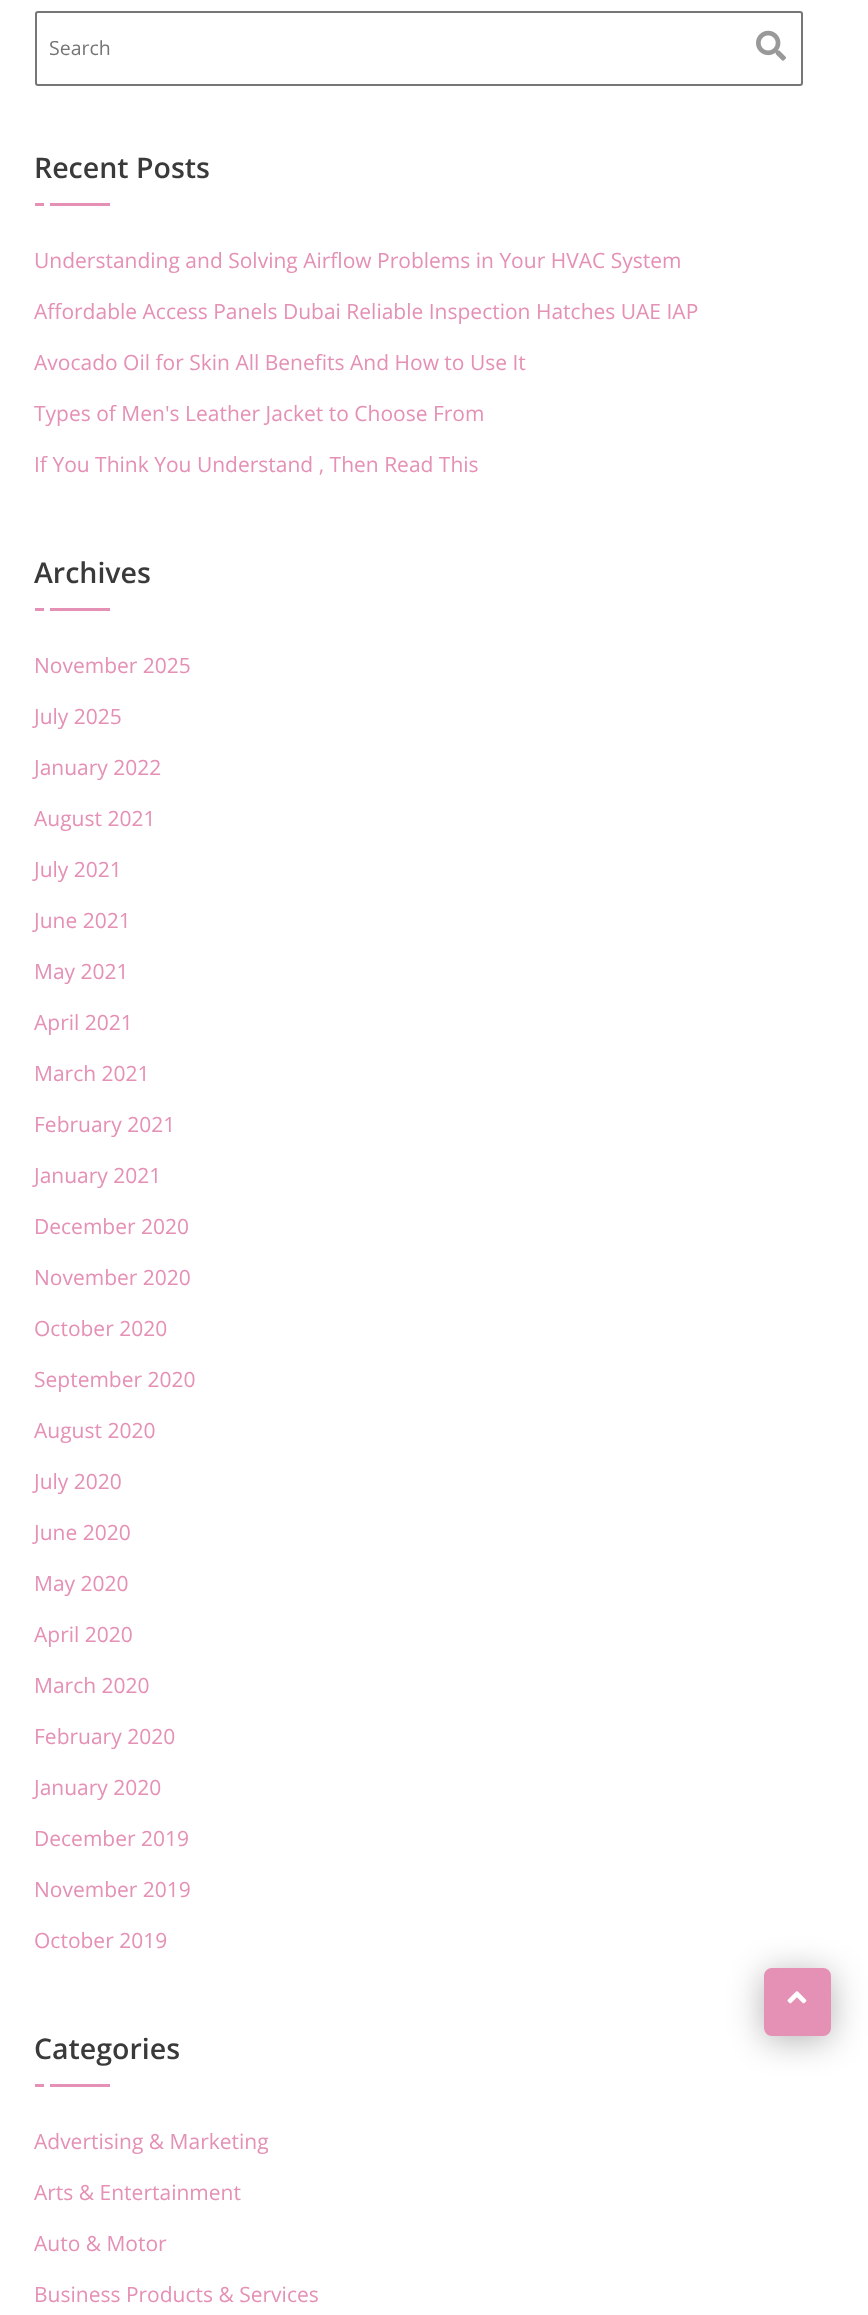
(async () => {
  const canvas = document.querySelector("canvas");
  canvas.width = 868;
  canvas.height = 2315;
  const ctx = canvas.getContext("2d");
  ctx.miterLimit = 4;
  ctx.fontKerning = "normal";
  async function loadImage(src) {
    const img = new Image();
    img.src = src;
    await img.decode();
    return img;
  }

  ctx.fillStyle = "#ffffff";
  ctx.fillRect(0, 0, 868, 2315);
  ctx.beginPath();
  ctx.roundRect(36, 12, 766, 73, 2);
  ctx.strokeStyle = "#767676";
  ctx.lineWidth = 2;
  ctx.stroke();
  ctx.drawImage(await loadImage("img/1.png"), 756, 30, 30, 31);
  for (const [x, y, w, h, color] of [
    [35, 203, 9, 3, "#e590b5"],
    [50, 203, 60, 3, "#e590b5"],
    [35, 608, 9, 3, "#e590b5"],
    [50, 608, 60, 3, "#e590b5"],
    [35, 2084, 9, 3, "#e590b5"],
    [50, 2084, 60, 3, "#e590b5"],
  ]) {
    ctx.fillStyle = color;
    ctx.fillRect(x, y, w, h);
  }
  ctx.fillStyle = "rgba(0, 0, 0, 0.3)";
  ctx.filter = "blur(17px)";
  ctx.beginPath();
  ctx.roundRect(764, 1973, 67, 67, 8);
  ctx.fill();
  ctx.filter = "none";
  ctx.fillStyle = "#e590b5";
  ctx.beginPath();
  ctx.roundRect(765, 1969, 65, 66, 7);
  ctx.fill();
  ctx.strokeStyle = "#e590b5";
  ctx.stroke();
  ctx.drawImage(await loadImage("img/2.png"), 787, 1991, 20, 13);
  ctx.font = "19.5px Open Sans";
  ctx.fillStyle = "#757575";
  ctx.fillText("Search", 49, 55);
  ctx.font = "600 28.5px Open Sans";
  ctx.fillStyle = "#3a3a3a";
  ctx.fillText("Recent Posts", 34, 178);
  ctx.font = "21px Open Sans";
  ctx.fillStyle = "#e590b5";
  for (const [text, x, y] of [
    ["Understanding and Solving Airflow Problems in Your HVAC System", 34, 268],
    ["Affordable Access Panels Dubai Reliable Inspection Hatches UAE IAP", 34, 319],
    ["Avocado Oil for Skin All Benefits And How to Use It", 34, 370],
    ["Types of Men's Leather Jacket to Choose From", 34, 421],
    ["If You Think You Understand , Then Read This", 34, 472],
  ]) {
    ctx.fillText(text, x, y);
  }
  ctx.font = "600 28.5px Open Sans";
  ctx.fillStyle = "#3a3a3a";
  ctx.fillText("Archives", 34, 583);
  ctx.font = "21px Open Sans";
  ctx.fillStyle = "#e590b5";
  for (const [text, x, y] of [
    ["November 2025", 34, 673],
    ["July 2025", 34, 724],
    ["January 2022", 34, 775],
    ["August 2021", 34, 826],
    ["July 2021", 34, 877],
    ["June 2021", 34, 928],
    ["May 2021", 34, 979],
    ["April 2021", 34, 1030],
    ["March 2021", 34, 1081],
    ["February 2021", 34, 1132],
    ["January 2021", 34, 1183],
    ["December 2020", 34, 1234],
    ["November 2020", 34, 1285],
    ["October 2020", 34, 1336],
    ["September 2020", 34, 1387],
    ["August 2020", 34, 1438],
    ["July 2020", 34, 1489],
    ["June 2020", 34, 1540],
    ["May 2020", 34, 1591],
    ["April 2020", 34, 1642],
    ["March 2020", 34, 1693],
    ["February 2020", 34, 1744],
    ["January 2020", 34, 1795],
    ["December 2019", 34, 1846],
    ["November 2019", 34, 1897],
    ["October 2019", 34, 1948],
  ]) {
    ctx.fillText(text, x, y);
  }
  ctx.font = "600 28.5px Open Sans";
  ctx.fillStyle = "#3a3a3a";
  ctx.fillText("Categories", 34, 2059);
  ctx.font = "21px Open Sans";
  ctx.fillStyle = "#e590b5";
  for (const [text, x, y] of [
    ["Advertising & Marketing", 34, 2149],
    ["Arts & Entertainment", 34, 2200],
    ["Auto & Motor", 34, 2251],
    ["Business Products & Services", 34, 2302],
  ]) {
    ctx.fillText(text, x, y);
  }
})();
